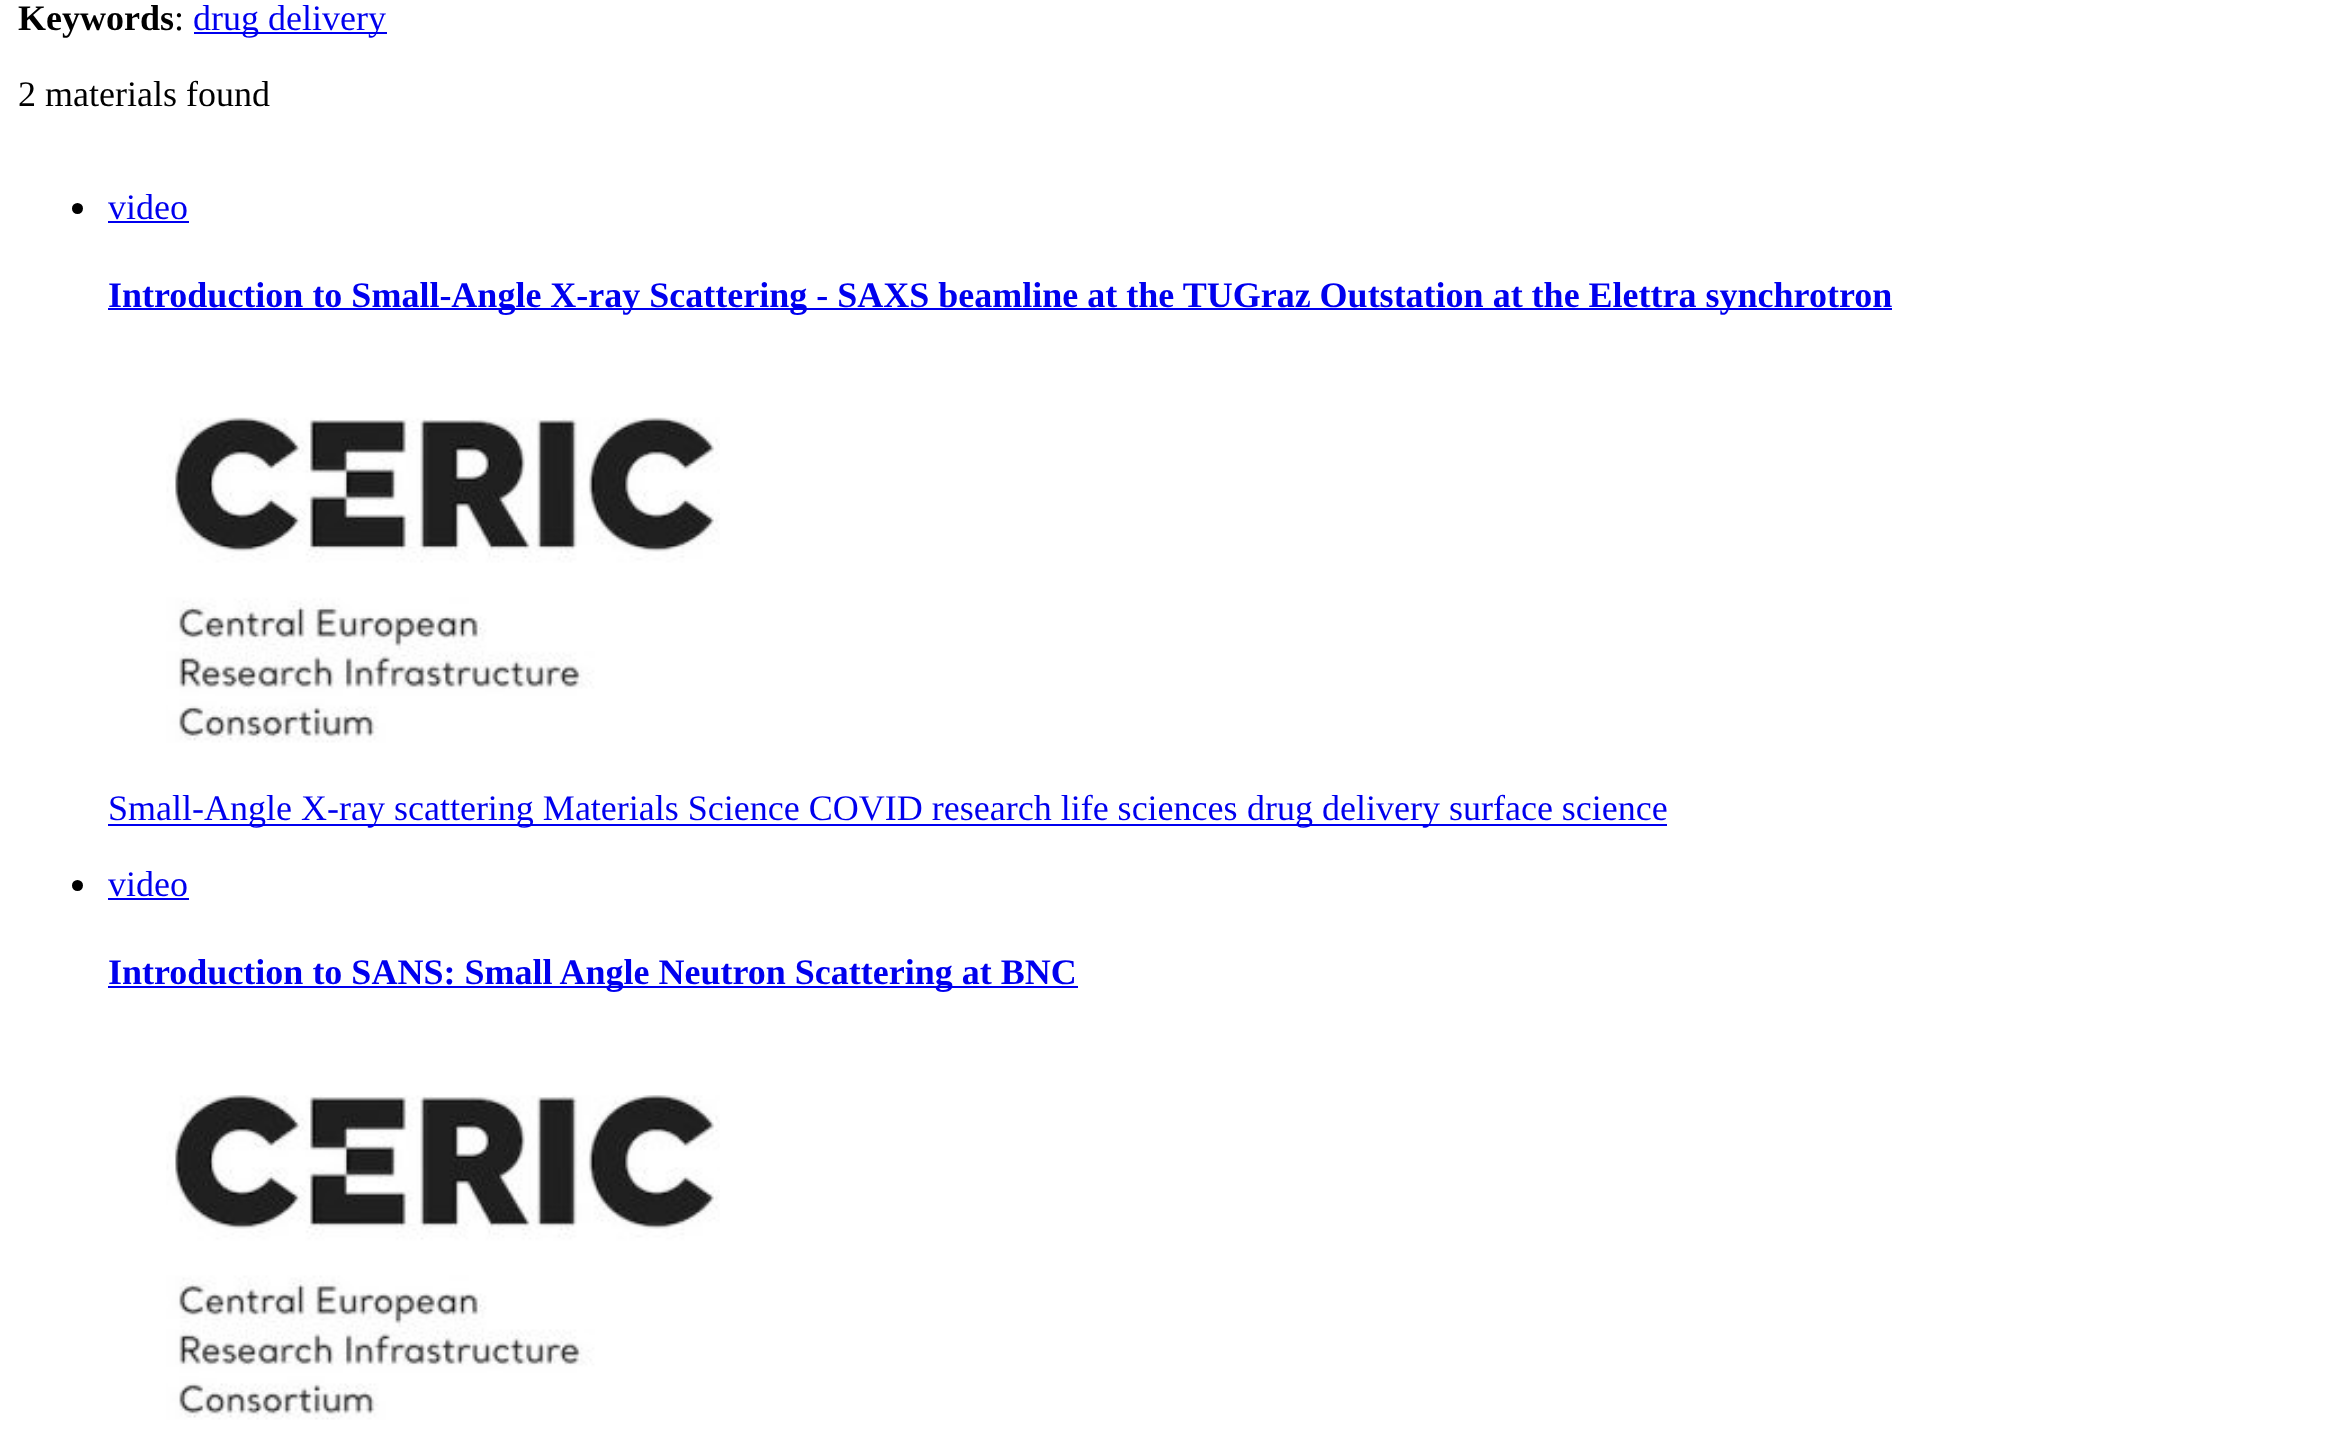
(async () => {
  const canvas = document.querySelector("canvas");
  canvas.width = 2341;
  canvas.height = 1432;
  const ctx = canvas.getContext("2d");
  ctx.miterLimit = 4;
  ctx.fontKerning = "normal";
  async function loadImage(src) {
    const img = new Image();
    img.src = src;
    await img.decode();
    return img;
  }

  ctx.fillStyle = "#ffffff";
  ctx.fillRect(0, 0, 2341, 1432);
  ctx.fillStyle = "#0000ee";
  ctx.fillRect(194, 32, 193, 2);
  ctx.fillStyle = "#000000";
  ctx.beginPath();
  ctx.arc(77.5, 208.5, 5.5, 0, Math.PI * 2);
  ctx.fill();
  ctx.fillStyle = "#0000ee";
  ctx.fillRect(108, 221, 81, 2);
  ctx.fillRect(108, 308, 1784, 2);
  ctx.drawImage(await loadImage("img/1.png"), 166, 417, 554, 326);
  ctx.fillRect(108, 824, 425, 2);
  ctx.fillRect(533, 824, 1134, 2);
  ctx.fillStyle = "#000000";
  ctx.beginPath();
  ctx.arc(77.5, 885.5, 5.5, 0, Math.PI * 2);
  ctx.fill();
  ctx.fillStyle = "#0000ee";
  ctx.fillRect(108, 898, 81, 2);
  ctx.fillRect(108, 986, 970, 2);
  ctx.drawImage(await loadImage("img/2.png"), 166, 1095, 554, 325);
  ctx.font = "bold 36px Liberation Serif";
  ctx.fillStyle = "#000000";
  ctx.fillText("Keywords", 18, 30);
  ctx.font = "36px Liberation Serif";
  ctx.fillText(":", 174, 30);
  ctx.fillStyle = "#0000ee";
  ctx.fillText("drug delivery", 193, 30);
  ctx.fillStyle = "#000000";
  ctx.fillText("2 materials found", 18, 106);
  ctx.fillStyle = "#0000ee";
  ctx.fillText("video", 108, 219);
  ctx.font = "bold 36px Liberation Serif";
  ctx.fillText("Introduction to Small-Angle X-ray Scattering - SAXS beamline at the TUGraz Outstation at the Elettra synchrotron", 108, 307);
  ctx.font = "36px Liberation Serif";
  for (const [text, x, y] of [
    ["Small-Angle X-ray scattering Materials Science COVID research life sciences", 108, 820],
    ["drug delivery surface science", 1247, 820],
    ["video", 108, 896],
  ]) {
    ctx.fillText(text, x, y);
  }
  ctx.font = "bold 36px Liberation Serif";
  ctx.fillText("Introduction to SANS: Small Angle Neutron Scattering at BNC", 108, 984);
})();
